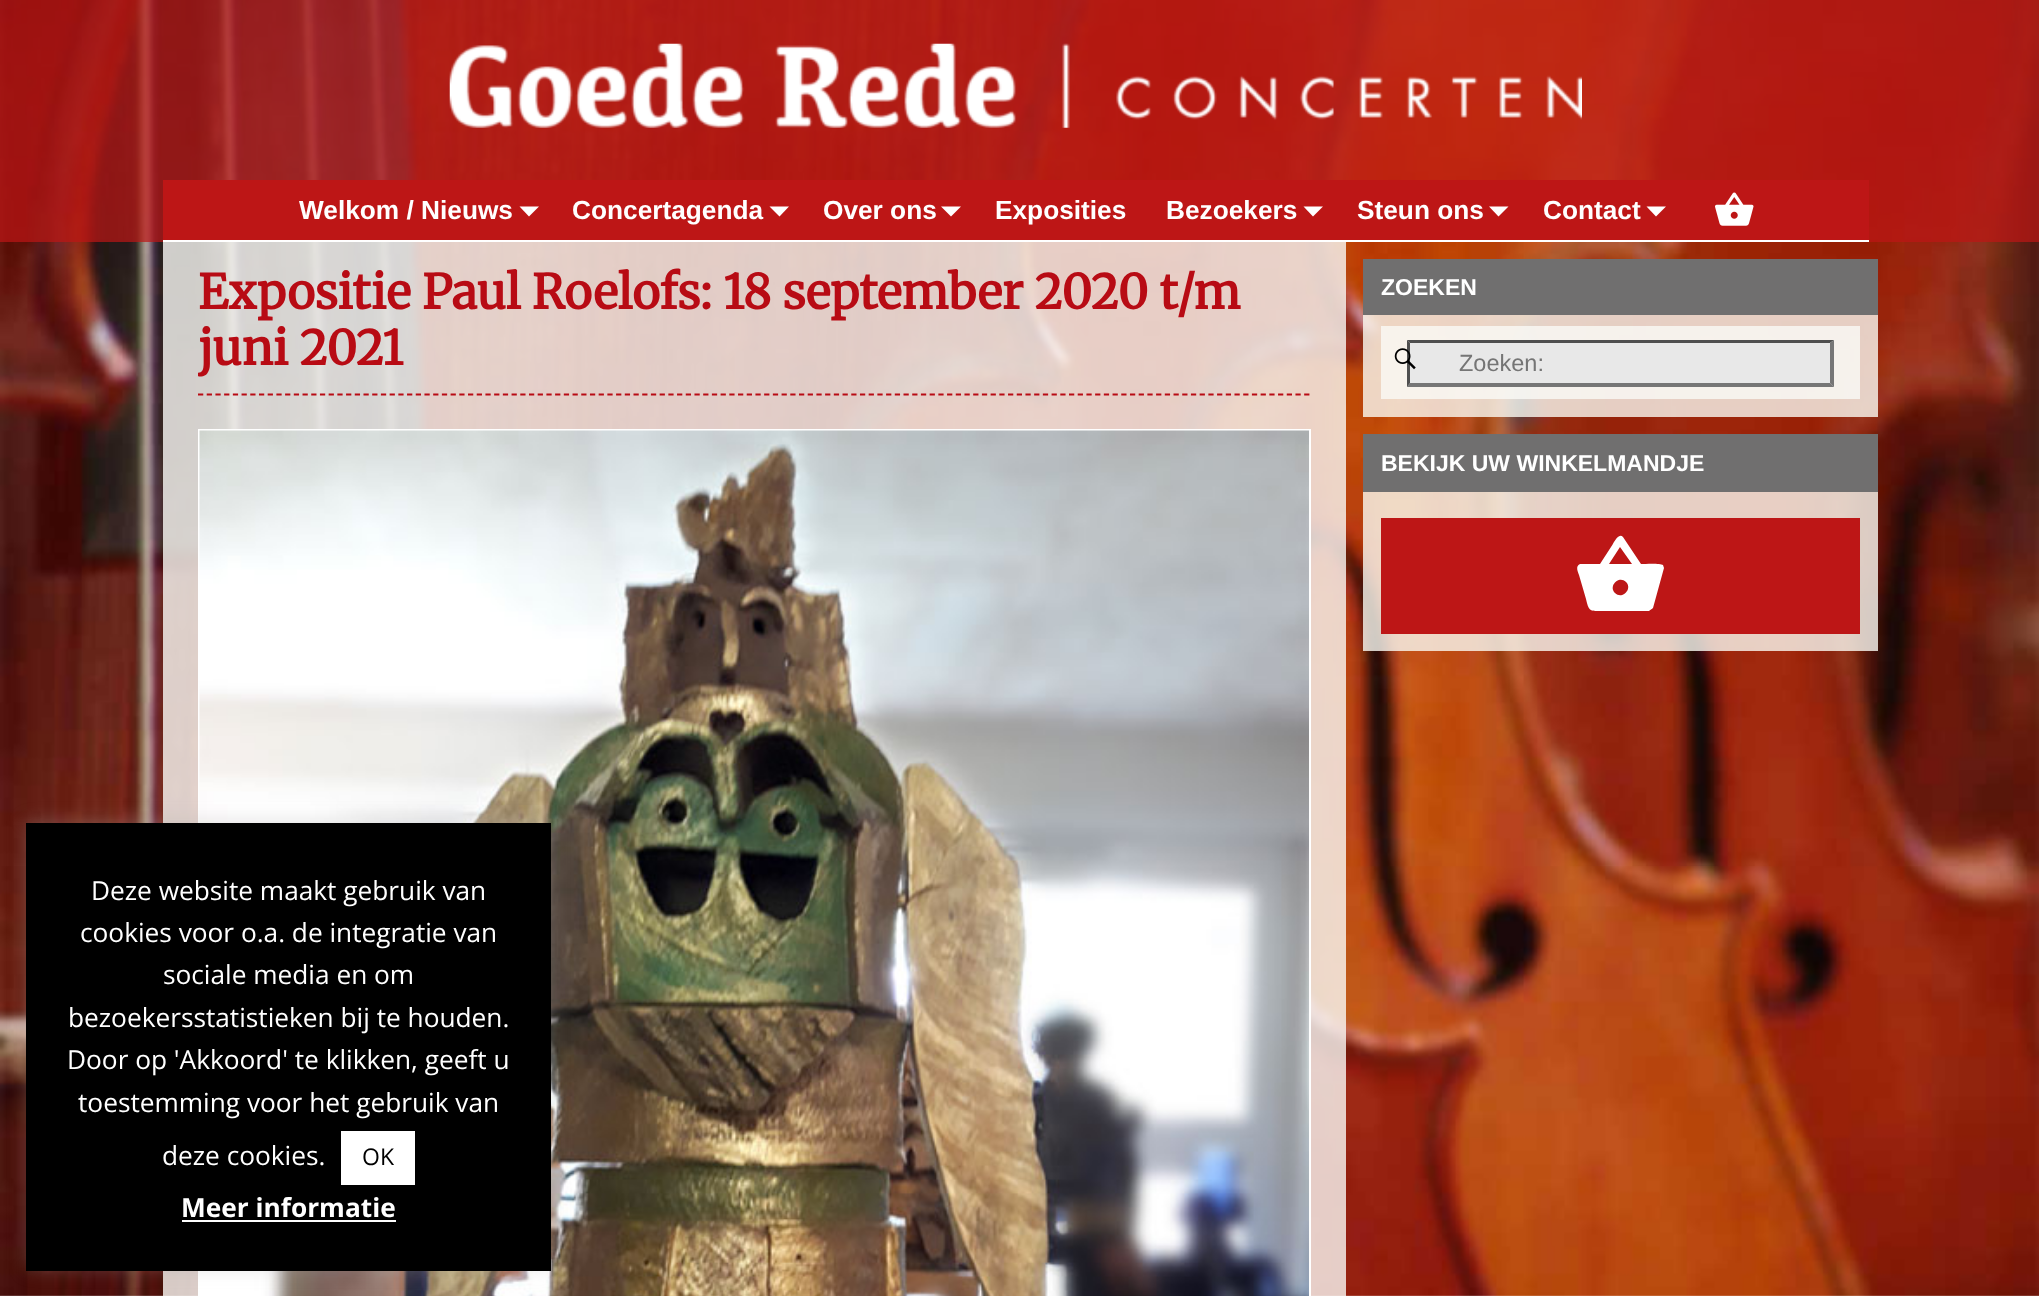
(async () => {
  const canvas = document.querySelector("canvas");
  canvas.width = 2039;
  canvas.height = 1296;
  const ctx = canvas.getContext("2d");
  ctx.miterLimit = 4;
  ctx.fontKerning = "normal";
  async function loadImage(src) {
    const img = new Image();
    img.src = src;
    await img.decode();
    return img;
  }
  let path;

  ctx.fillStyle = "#ffffff";
  ctx.fillRect(0, 0, 2039, 1296);
  ctx.drawImage(await loadImage("img/1.png"), 0, 0, 2039, 1296);
  ctx.fillStyle = "rgba(189, 22, 22, 0.7)";
  ctx.fillRect(0, 0, 2039, 242);
  ctx.drawImage(await loadImage("img/2.png"), 449, 43, 1133, 85);
  ctx.fillStyle = "#bd1616";
  ctx.fillRect(163, 180, 1706, 60);
  ctx.fillStyle = "#ffffff";
  ctx.fillRect(163, 240, 1706, 2);
  path = new Path2D("M519.5 206.5H539L529 216.5Z");
  ctx.fill(path);
  path = new Path2D("M769.5 206.5H789L779.5 216.5Z");
  ctx.fill(path);
  path = new Path2D("M941 206.5H961L951 216.5Z");
  ctx.fill(path);
  path = new Path2D("M1303.5 206.5H1323L1313 216.5Z");
  ctx.fill(path);
  path = new Path2D("M1489 206.5H1508.5L1498.5 216.5Z");
  ctx.fill(path);
  path = new Path2D("M1646.5 206.5H1666L1656 216.5Z");
  ctx.fill(path);
  ctx.drawImage(await loadImage("img/3.png"), 1715, 192, 39, 34);
  ctx.fillStyle = "rgba(250, 250, 246, 0.8)";
  ctx.fillRect(163, 242, 1183, 1054);
  path = new Path2D("M198 394.5H1311");
  ctx.strokeStyle = "#b80b14";
  ctx.lineWidth = 1.8;
  ctx.setLineDash([5.25, 3.46]);
  ctx.stroke(path);
  ctx.strokeStyle = "#ffffff";
  ctx.lineWidth = 2;
  ctx.setLineDash([]);
  ctx.strokeRect(199, 430, 1111, 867);
  ctx.drawImage(await loadImage("img/4.png"), 199, 430, 1110, 866);
  for (const [x, y, w, h, color] of [
    [1363, 315, 515, 102, "rgba(250, 250, 242, 0.8)"],
    [1363, 259, 515, 56, "#706f6f"],
    [1381, 326, 479, 73, "rgba(250, 250, 246, 0.8)"],
    [1407, 340, 427, 47, "#e8e8e8"],
  ]) {
    ctx.fillStyle = color;
    ctx.fillRect(x, y, w, h);
  }
  ctx.fillStyle = "#4f4f4f";
  path = new Path2D("M1407 340H1834L1830 343H1410Z");
  ctx.fill(path);
  ctx.fillStyle = "#767676";
  path = new Path2D("M1834 340V387L1830 383V343Z");
  ctx.fill(path);
  path = new Path2D("M1834 387H1407L1410 383H1830Z");
  ctx.fill(path);
  ctx.fillStyle = "#4f4f4f";
  path = new Path2D("M1407 387V340L1410 343V383Z");
  ctx.fill(path);
  ctx.drawImage(await loadImage("img/5.png"), 1394, 348, 22, 22);
  for (const [x, y, w, h, color] of [
    [1363, 492, 515, 159, "rgba(250, 250, 242, 0.8)"],
    [1363, 434, 515, 58, "#706f6f"],
    [1381, 518, 479, 116, "#bd1616"],
  ]) {
    ctx.fillStyle = color;
    ctx.fillRect(x, y, w, h);
  }
  ctx.fillStyle = "#ffffff";
  path = new Path2D("M1615 593C1622 600 1633 589 1626 582C1619 575 1608 586 1615 593ZM1609 564H1632L1620 547ZM1641 564C1645 564 1660 563 1663 565L1664 568L1653 608C1652 609 1650 610 1649 611H1603C1590 611 1589 612 1586 599L1579 575C1578 572 1575 566 1580 564H1600L1611 547C1613 545 1618 532 1623 537Z");
  ctx.fill(path);
  ctx.fillStyle = "rgba(172, 171, 171, 0.3)";
  ctx.filter = "blur(9px)";
  ctx.beginPath();
  ctx.rect(26, 821, 525, 448);
  ctx.fill();
  ctx.filter = "none";
  for (const [x, y, w, h, color] of [
    [26, 823, 525, 448, "#000000"],
    [341, 1131, 74, 54, "#ffffff"],
    [182, 1220, 214, 2, "#ffffff"],
  ]) {
    ctx.fillStyle = color;
    ctx.fillRect(x, y, w, h);
  }
  ctx.font = "bold 26.25px Liberation Sans";
  for (const [text, x, y] of [
    ["Welkom / Nieuws", 299, 219],
    ["Concertagenda", 572, 219],
    ["Over ons", 823, 219],
    ["Exposities", 995, 219],
    ["Bezoekers", 1166, 219],
    ["Steun ons", 1357, 219],
    ["Contact", 1543, 219],
  ]) {
    ctx.fillText(text, x, y);
  }
  ctx.font = "bold 47.25px Merriweather";
  ctx.fillStyle = "#b80b14";
  ctx.fillText("Expositie Paul Roelofs: 18 september 2020 t/m", 198, 309);
  ctx.save();
  ctx.beginPath();
  ctx.rect(198, 243, 1113, 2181);
  ctx.clip();
  ctx.fillText("juni 2021", 198, 365);
  ctx.restore();
  ctx.font = "bold 23px Liberation Sans";
  ctx.fillStyle = "#ffffff";
  ctx.fillText("ZOEKEN", 1381, 295);
  ctx.font = "23.5px Liberation Sans";
  ctx.fillStyle = "#757575";
  ctx.fillText("Zoeken:", 1459, 371);
  ctx.font = "bold 23px Liberation Sans";
  ctx.fillStyle = "#ffffff";
  ctx.fillText("BEKIJK UW WINKELMANDJE", 1381, 471);
  ctx.font = "26.25px Open Sans";
  for (const [text, x, y] of [
    ["Deze website maakt gebruik van", 91, 900],
    ["cookies voor o.a. de integratie van", 80, 942],
    ["sociale media en om", 163, 984],
    ["bezoekersstatistieken bij te houden.", 68, 1027],
    ["Door op 'Akkoord' te klikken, geeft u", 67, 1069],
    ["toestemming voor het gebruik van", 78, 1112],
    ["deze cookies.", 162, 1165],
  ]) {
    ctx.fillText(text, x, y);
  }
  ctx.font = "23px Open Sans";
  ctx.fillStyle = "#000000";
  ctx.fillText("OK", 362, 1165);
  ctx.font = "bold 26.25px Open Sans";
  ctx.fillStyle = "#ffffff";
  ctx.fillText("Meer informatie", 181, 1217);
})();
